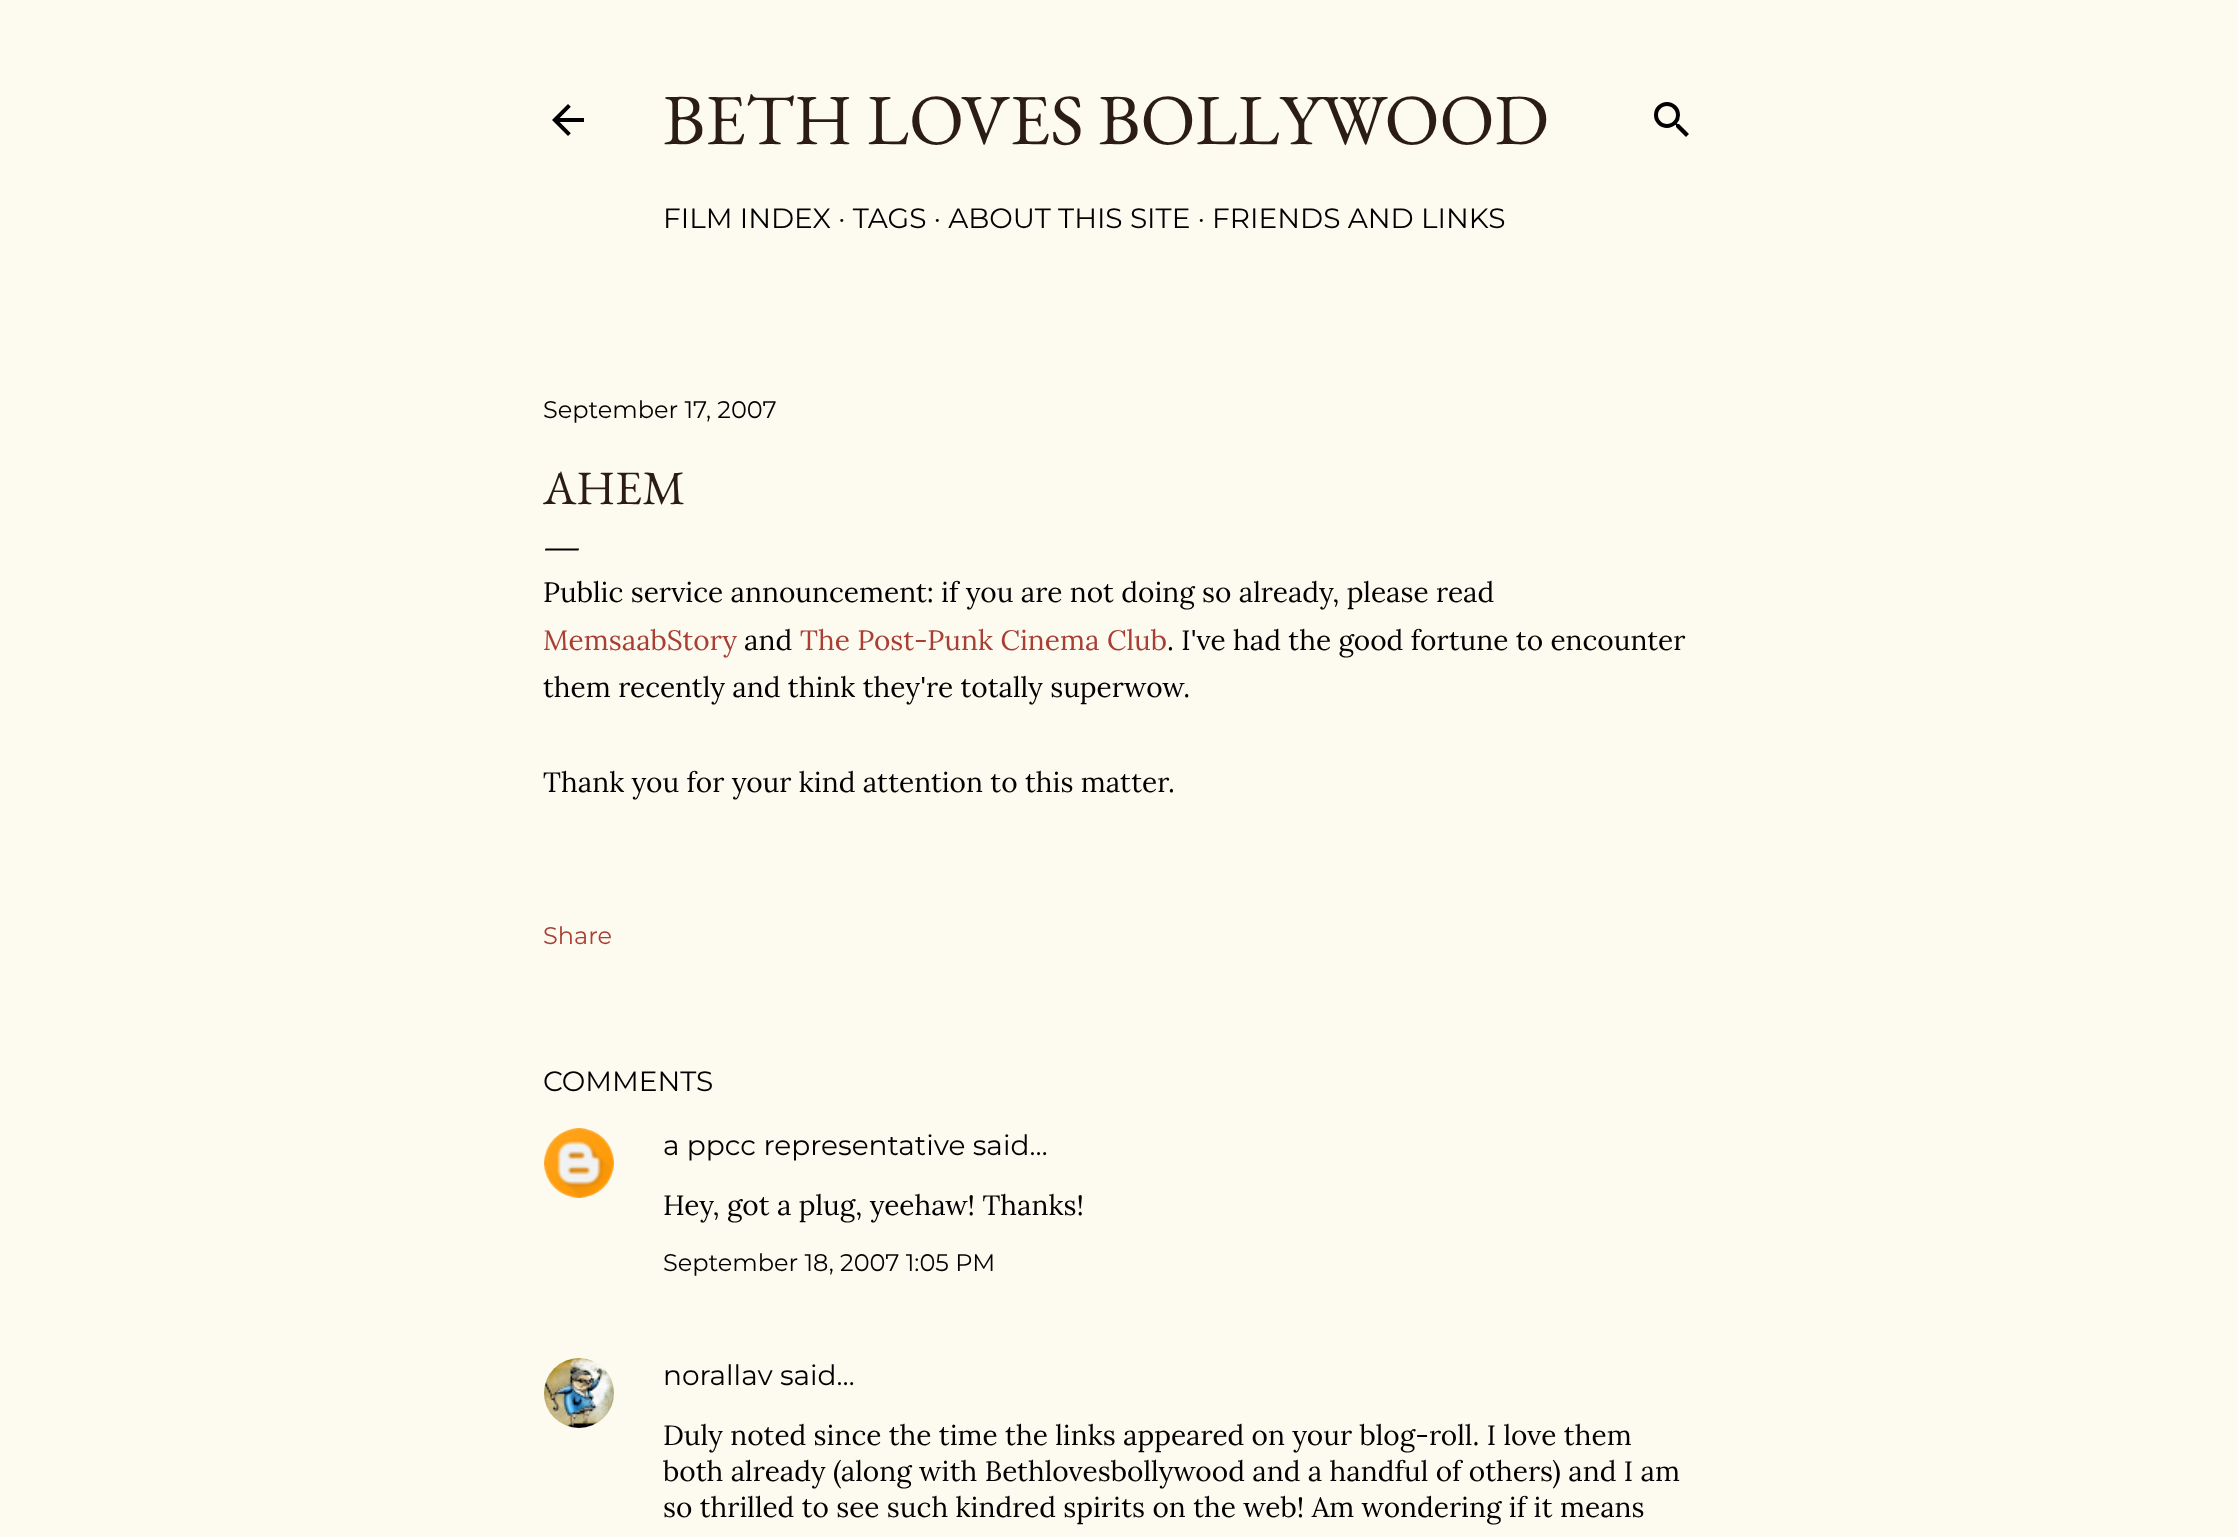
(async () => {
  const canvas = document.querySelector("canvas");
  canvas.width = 2238;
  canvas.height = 1537;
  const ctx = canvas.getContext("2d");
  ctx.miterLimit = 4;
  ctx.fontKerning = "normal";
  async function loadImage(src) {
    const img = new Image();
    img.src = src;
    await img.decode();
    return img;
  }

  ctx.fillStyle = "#fdfaf0";
  ctx.fillRect(0, 0, 2238, 1537);
  ctx.drawImage(await loadImage("img/1.png"), 552, 104, 32, 32);
  ctx.drawImage(await loadImage("img/2.png"), 1654, 102, 35, 35);
  ctx.drawImage(await loadImage("img/3.png"), 544, 1128, 70, 70);
  ctx.drawImage(await loadImage("img/4.png"), 544, 1358, 70, 70);
  ctx.font = "72px EB Garamond";
  ctx.fillStyle = "#2c1d14";
  ctx.fillText("BETH LOVES BOLLYWOOD", 663, 144);
  ctx.font = "28px Montserrat";
  ctx.fillStyle = "#000000";
  ctx.fillText("FILM INDEX · TAGS · ABOUT THIS SITE · FRIENDS AND LINKS", 663, 228);
  ctx.font = "24px Montserrat";
  ctx.fillText("September 17, 2007", 543, 418);
  ctx.font = "48px EB Garamond";
  ctx.fillStyle = "#2c1d14";
  ctx.fillText("AHEM", 543, 504);
  ctx.font = "40px EB Garamond";
  ctx.fillStyle = "#000000";
  ctx.fillText("—", 543, 558);
  ctx.font = "28px Lora";
  ctx.fillText("Public service announcement: if you are not doing so already, please read", 543, 602);
  ctx.fillStyle = "#a93e33";
  ctx.fillText("MemsaabStory", 543, 650);
  ctx.fillStyle = "#000000";
  ctx.fillText("and", 744, 650);
  ctx.fillStyle = "#a93e33";
  ctx.fillText("The Post-Punk Cinema Club", 800, 650);
  ctx.fillStyle = "#000000";
  for (const [text, x, y] of [
    [". I've had the good fortune to encounter", 1167, 650],
    ["them recently and think they're totally superwow.", 543, 697],
    ["Thank you for your kind attention to this matter.", 543, 792],
  ]) {
    ctx.fillText(text, x, y);
  }
  ctx.font = "24px Montserrat";
  ctx.fillStyle = "#a93e33";
  ctx.fillText("Share", 543, 944);
  ctx.font = "28px Montserrat";
  ctx.fillStyle = "#000000";
  ctx.fillText("COMMENTS", 543, 1091);
  ctx.fillText("a ppcc representative said…", 663, 1155);
  ctx.font = "28px Lora";
  ctx.fillText("Hey, got a plug, yeehaw! Thanks!", 663, 1215);
  ctx.font = "24px Montserrat";
  ctx.fillText("September 18, 2007 1:05 PM", 663, 1271);
  ctx.font = "28px Montserrat";
  ctx.fillText("norallav said…", 663, 1385);
  ctx.font = "28px Lora";
  for (const [text, x, y] of [
    ["Duly noted since the time the links appeared on your blog-roll. I love them", 663, 1445],
    ["both already (along with Bethlovesbollywood and a handful of others) and I am", 663, 1481],
    ["so thrilled to see such kindred spirits on the web! Am wondering if it means", 663, 1517],
  ]) {
    ctx.fillText(text, x, y);
  }
})();
